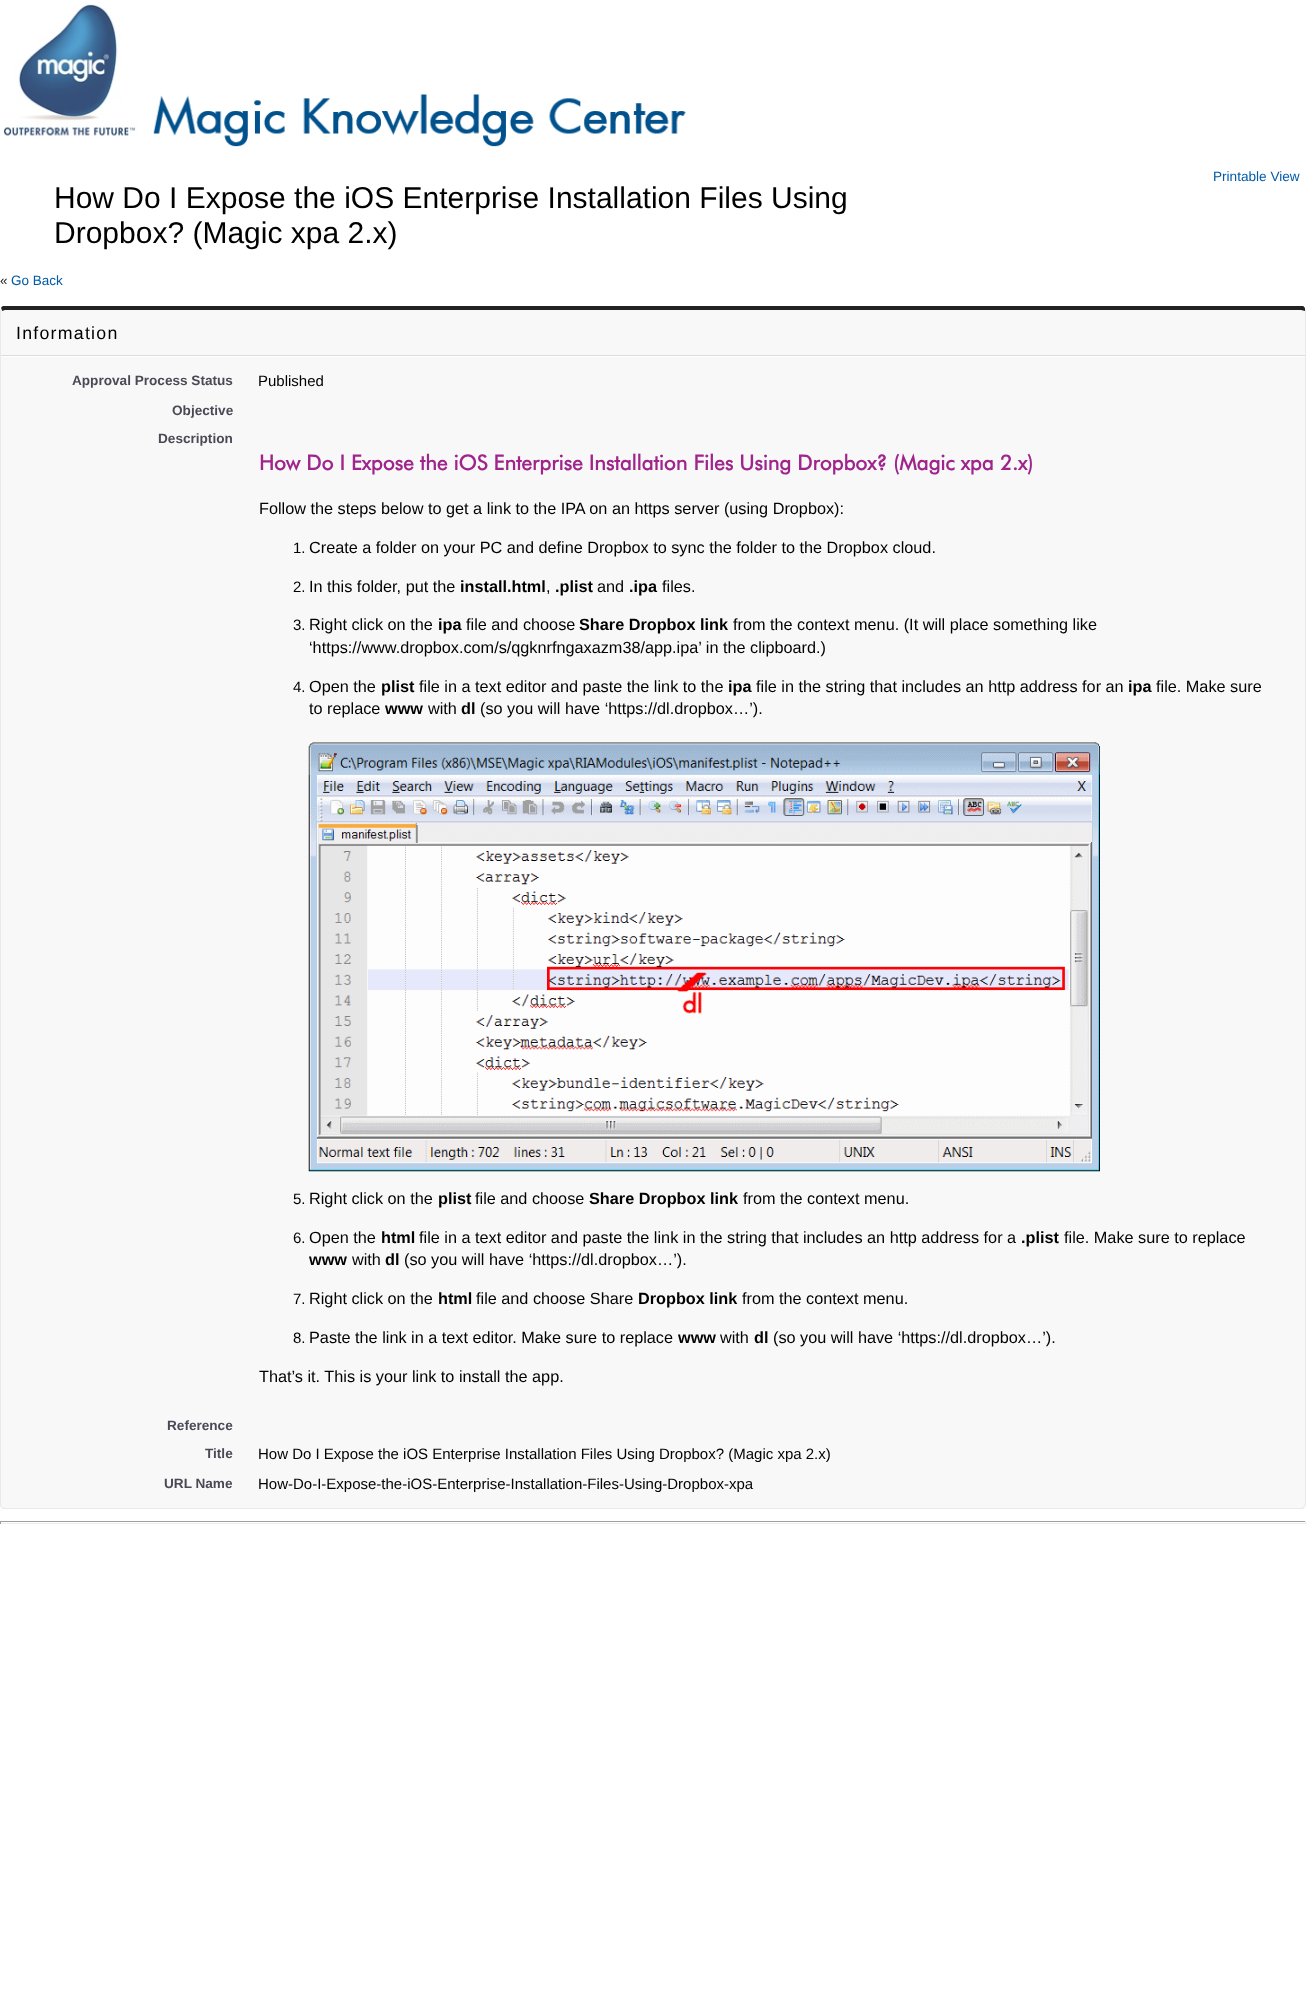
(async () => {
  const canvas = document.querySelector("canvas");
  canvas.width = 1306;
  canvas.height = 1995;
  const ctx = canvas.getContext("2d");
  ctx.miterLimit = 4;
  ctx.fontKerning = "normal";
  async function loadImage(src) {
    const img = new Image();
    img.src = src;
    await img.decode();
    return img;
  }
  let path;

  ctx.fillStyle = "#ffffff";
  ctx.fillRect(0, 0, 1306, 1995);
  ctx.drawImage(await loadImage("img/1.png"), 3, 4, 683, 143);
  ctx.fillStyle = "#f8f8f8";
  path = new Path2D("M5 310H1301C1303 310 1305 311 1305 311V1504C1305 1506 1303 1508 1301 1508H5C3 1508 1 1506 1 1504V311C1 311 3 310 5 310Z");
  ctx.fill(path);
  ctx.fillStyle = "#222222";
  path = new Path2D("M5 310L2 311L1 308C1 307 2 307 3 306H1303C1304 307 1305 307 1305 309V311L1301 310Z");
  ctx.fill(path);
  ctx.fillStyle = "#eaeaea";
  path = new Path2D("M1305 309L1306 311V1504L1305 1507L1304 1506L1305 1504V311Z");
  ctx.fill(path);
  path = new Path2D("M3 1509L1 1507H2L5 1508H1301C1302 1508 1303 1507 1304 1506L1305 1507L1303 1509Z");
  ctx.fill(path);
  path = new Path2D("M0 311V1504C0 1505 0 1507 1 1507H2L1 1504V311H2L1 308Z");
  ctx.fill(path);
  ctx.fillStyle = "#ffffff";
  ctx.fillRect(1, 356, 1304, 1);
  ctx.fillStyle = "#dbdbdb";
  ctx.fillRect(1, 355, 1304, 1);
  ctx.drawImage(await loadImage("img/2.png"), 308, 742, 792, 430);
  for (const [x, y, w, h, color] of [
    [0, 1521, 1306, 1, "#9f9f9f"],
    [1305, 1521, 1, 3, "#eeeeee"],
    [0, 1523, 1306, 1, "#eeeeee"],
    [0, 1521, 1, 3, "#9f9f9f"],
  ]) {
    ctx.fillStyle = color;
    ctx.fillRect(x, y, w, h);
  }
  ctx.font = "13.6px Liberation Sans";
  ctx.fillStyle = "#015ba7";
  ctx.fillText("Printable View", 1213, 181);
  ctx.font = "30px Liberation Sans";
  ctx.fillStyle = "#000000";
  ctx.fillText("How Do I Expose the iOS Enterprise Installation Files Using", 54, 208);
  ctx.fillText("Dropbox? (Magic xpa 2.x)", 54, 243);
  ctx.font = "13.5px Liberation Sans";
  ctx.fillStyle = "#222222";
  ctx.fillText("«", 0, 285);
  ctx.fillStyle = "#015ba7";
  ctx.fillText("Go Back", 11, 285);
  ctx.letterSpacing = "1.25px";
  ctx.font = "17.75px Liberation Sans";
  ctx.fillStyle = "#000000";
  ctx.fillText("Information", 16, 339);
  ctx.letterSpacing = "0px";
  ctx.font = "bold 13.6px Liberation Sans";
  ctx.fillStyle = "#4a4a56";
  ctx.fillText("Approval Process Status", 72, 385);
  ctx.font = "15px Liberation Sans";
  ctx.fillStyle = "#000000";
  ctx.fillText("Published", 258, 386);
  ctx.font = "bold 13.6px Liberation Sans";
  ctx.fillStyle = "#4a4a56";
  ctx.fillText("Objective", 172, 415);
  ctx.fillText("Description", 158, 443);
  ctx.font = "bold 20.8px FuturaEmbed";
  ctx.fillStyle = "#9f258d";
  ctx.fillText("How Do I Expose the iOS Enterprise Installation Files Using Dropbox? (Magic xpa 2.x)", 259, 470);
  ctx.font = "16.25px Liberation Sans";
  ctx.fillStyle = "#000000";
  ctx.fillText("Follow the steps below to get a link to the IPA on an https server (using Dropbox):", 259, 514);
  ctx.font = "15px Liberation Sans";
  ctx.fillText("1.", 293, 553);
  ctx.font = "16.25px Liberation Sans";
  ctx.fillText("Create a folder on your PC and define Dropbox to sync the folder to the Dropbox cloud.", 309, 553);
  ctx.font = "15px Liberation Sans";
  ctx.fillText("2.", 293, 592);
  ctx.font = "16.25px Liberation Sans";
  ctx.fillText("In this folder, put the", 309, 592);
  ctx.font = "bold 16.25px Liberation Sans";
  ctx.fillText("install.html", 460, 592);
  ctx.font = "16.25px Liberation Sans";
  ctx.fillText(",", 546, 592);
  ctx.font = "bold 16.25px Liberation Sans";
  ctx.fillText(".plist", 555, 592);
  ctx.font = "16.25px Liberation Sans";
  ctx.fillText("and", 597, 592);
  ctx.font = "bold 16.25px Liberation Sans";
  ctx.fillText(".ipa", 629, 592);
  ctx.font = "16.25px Liberation Sans";
  ctx.fillText("files.", 662, 592);
  ctx.font = "15px Liberation Sans";
  ctx.fillText("3.", 293, 630);
  ctx.font = "16.25px Liberation Sans";
  ctx.fillText("Right click on the", 309, 630);
  ctx.font = "bold 16.25px Liberation Sans";
  ctx.fillText("ipa", 438, 630);
  ctx.font = "16.25px Liberation Sans";
  ctx.fillText("file and choose", 466, 630);
  ctx.font = "bold 16.25px Liberation Sans";
  ctx.fillText("Share Dropbox link", 579, 630);
  ctx.font = "16.25px Liberation Sans";
  ctx.fillText("from the context menu. (It will place something like", 733, 630);
  ctx.fillText("‘https://www.dropbox.com/s/qgknrfngaxazm38/app.ipa’ in the clipboard.)", 309, 653);
  ctx.font = "15px Liberation Sans";
  ctx.fillText("4.", 293, 692);
  ctx.font = "16.25px Liberation Sans";
  ctx.fillText("Open the", 309, 692);
  ctx.font = "bold 16.25px Liberation Sans";
  ctx.fillText("plist", 381, 692);
  ctx.font = "16.25px Liberation Sans";
  ctx.fillText("file in a text editor and paste the link to the", 419, 692);
  ctx.font = "bold 16.25px Liberation Sans";
  ctx.fillText("ipa", 728, 692);
  ctx.font = "16.25px Liberation Sans";
  ctx.fillText("file in the string that includes an http address for an", 756, 692);
  ctx.font = "bold 16.25px Liberation Sans";
  ctx.fillText("ipa", 1128, 692);
  ctx.font = "16.25px Liberation Sans";
  ctx.fillText("file. Make sure", 1156, 692);
  ctx.fillText("to replace", 309, 714);
  ctx.font = "bold 16.25px Liberation Sans";
  ctx.fillText("www", 385, 714);
  ctx.font = "16.25px Liberation Sans";
  ctx.fillText("with", 428, 714);
  ctx.font = "bold 16.25px Liberation Sans";
  ctx.fillText("dl", 461, 714);
  ctx.font = "16.25px Liberation Sans";
  ctx.fillText("(so you will have ‘https://dl.dropbox…’).", 480, 714);
  ctx.font = "15px Liberation Sans";
  ctx.fillText("5.", 293, 1204);
  ctx.font = "16.25px Liberation Sans";
  ctx.fillText("Right click on the", 309, 1204);
  ctx.font = "bold 16.25px Liberation Sans";
  ctx.fillText("plist", 438, 1204);
  ctx.font = "16.25px Liberation Sans";
  ctx.fillText("file and choose", 475, 1204);
  ctx.font = "bold 16.25px Liberation Sans";
  ctx.fillText("Share Dropbox link", 589, 1204);
  ctx.font = "16.25px Liberation Sans";
  ctx.fillText("from the context menu.", 743, 1204);
  ctx.font = "15px Liberation Sans";
  ctx.fillText("6.", 293, 1243);
  ctx.font = "16.25px Liberation Sans";
  ctx.fillText("Open the", 309, 1243);
  ctx.font = "bold 16.25px Liberation Sans";
  ctx.fillText("html", 381, 1243);
  ctx.font = "16.25px Liberation Sans";
  ctx.fillText("file in a text editor and paste the link in the string that includes an http address for a", 419, 1243);
  ctx.font = "bold 16.25px Liberation Sans";
  ctx.fillText(".plist", 1021, 1243);
  ctx.font = "16.25px Liberation Sans";
  ctx.fillText("file. Make sure to replace", 1064, 1243);
  ctx.font = "bold 16.25px Liberation Sans";
  ctx.fillText("www", 309, 1265);
  ctx.font = "16.25px Liberation Sans";
  ctx.fillText("with", 352, 1265);
  ctx.font = "bold 16.25px Liberation Sans";
  ctx.fillText("dl", 385, 1265);
  ctx.font = "16.25px Liberation Sans";
  ctx.fillText("(so you will have ‘https://dl.dropbox…’).", 404, 1265);
  ctx.font = "15px Liberation Sans";
  ctx.fillText("7.", 293, 1304);
  ctx.font = "16.25px Liberation Sans";
  ctx.fillText("Right click on the", 309, 1304);
  ctx.font = "bold 16.25px Liberation Sans";
  ctx.fillText("html", 438, 1304);
  ctx.font = "16.25px Liberation Sans";
  ctx.fillText("file and choose Share", 476, 1304);
  ctx.font = "bold 16.25px Liberation Sans";
  ctx.fillText("Dropbox link", 638, 1304);
  ctx.font = "16.25px Liberation Sans";
  ctx.fillText("from the context menu.", 742, 1304);
  ctx.font = "15px Liberation Sans";
  ctx.fillText("8.", 293, 1343);
  ctx.font = "16.25px Liberation Sans";
  ctx.fillText("Paste the link in a text editor. Make sure to replace", 309, 1343);
  ctx.font = "bold 16.25px Liberation Sans";
  ctx.fillText("www", 678, 1343);
  ctx.font = "16.25px Liberation Sans";
  ctx.fillText("with", 720, 1343);
  ctx.font = "bold 16.25px Liberation Sans";
  ctx.fillText("dl", 754, 1343);
  ctx.font = "16.25px Liberation Sans";
  ctx.fillText("(so you will have ‘https://dl.dropbox…’).", 773, 1343);
  ctx.fillText("That’s it. This is your link to install the app.", 259, 1382);
  ctx.font = "bold 13.6px Liberation Sans";
  ctx.fillStyle = "#4a4a56";
  ctx.fillText("Reference", 167, 1430);
  ctx.fillText("Title", 205, 1458);
  ctx.font = "15px Liberation Sans";
  ctx.fillStyle = "#000000";
  ctx.fillText("How Do I Expose the iOS Enterprise Installation Files Using Dropbox? (Magic xpa 2.x)", 258, 1459);
  ctx.font = "bold 13.6px Liberation Sans";
  ctx.fillStyle = "#4a4a56";
  ctx.fillText("URL Name", 164, 1488);
  ctx.font = "15px Liberation Sans";
  ctx.fillStyle = "#000000";
  ctx.fillText("How-Do-I-Expose-the-iOS-Enterprise-Installation-Files-Using-Dropbox-xpa", 258, 1489);
})();
